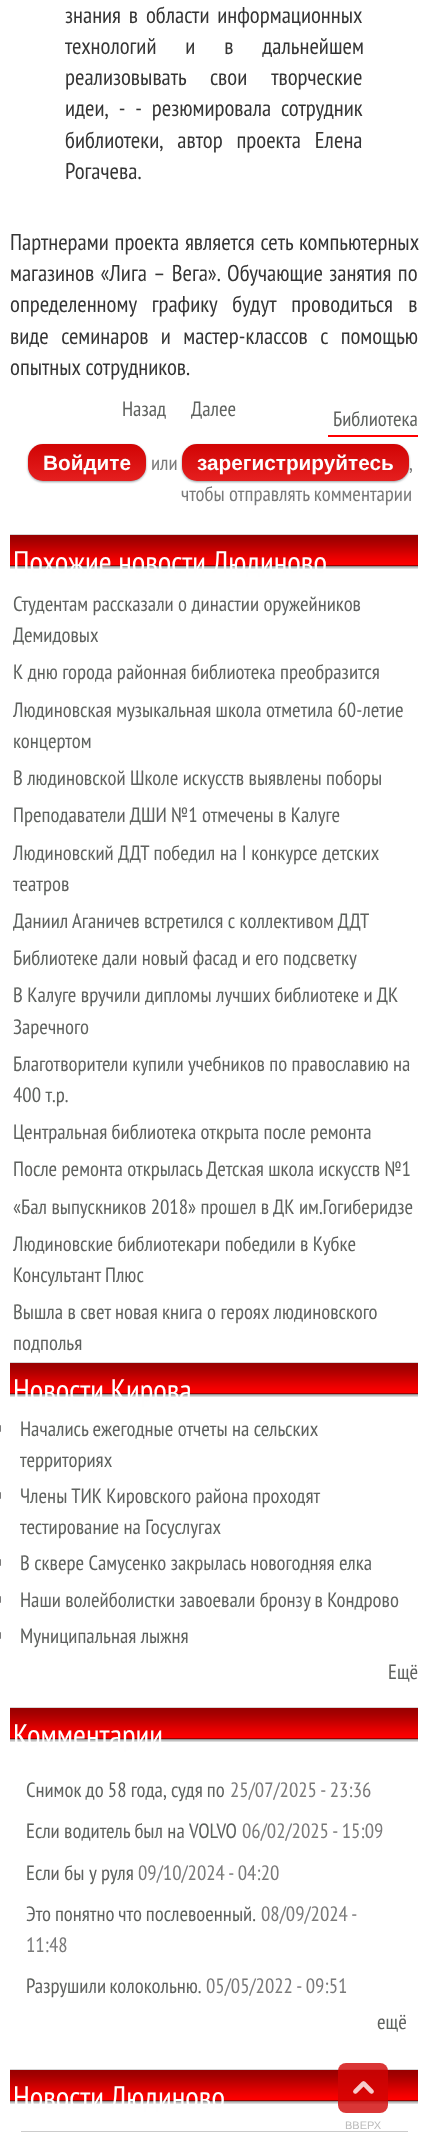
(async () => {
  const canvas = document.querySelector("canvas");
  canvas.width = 428;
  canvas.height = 2151;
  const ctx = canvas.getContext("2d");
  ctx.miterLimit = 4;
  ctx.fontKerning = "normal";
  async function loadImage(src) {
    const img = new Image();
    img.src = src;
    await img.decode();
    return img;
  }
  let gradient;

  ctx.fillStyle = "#ffffff";
  ctx.fillRect(0, 0, 428, 2151);
  ctx.fillStyle = "#ff0000";
  ctx.fillRect(328, 435, 90, 2);
  ctx.fillStyle = "#939da2";
  ctx.filter = "blur(1px)";
  ctx.beginPath();
  ctx.roundRect(28, 445, 118, 37, 15);
  ctx.fill();
  ctx.filter = "none";
  gradient = ctx.createLinearGradient(87, 444, 87, 481);
  gradient.addColorStop(0, "#d10404");
  gradient.addColorStop(1, "#e51f1f");
  ctx.fillStyle = gradient;
  ctx.beginPath();
  ctx.roundRect(28, 444, 118, 37, 15);
  ctx.fill();
  ctx.fillStyle = "#939da2";
  ctx.filter = "blur(1px)";
  ctx.beginPath();
  ctx.roundRect(182, 445, 227, 37, 15);
  ctx.fill();
  ctx.filter = "none";
  gradient = ctx.createLinearGradient(296, 444, 296, 481);
  gradient.addColorStop(0, "#d10404");
  gradient.addColorStop(1, "#e51f1f");
  ctx.fillStyle = gradient;
  ctx.beginPath();
  ctx.roundRect(182, 444, 227, 37, 15);
  ctx.fill();
  ctx.drawImage(await loadImage("img/1.png"), 10, 534, 408, 35);
  ctx.drawImage(await loadImage("img/1.png"), 10, 1362, 408, 35);
  ctx.fillStyle = "#7a7a7a";
  ctx.beginPath();
  ctx.roundRect(0, 1425, 1, 7, [0, 3.5, 3.5, 0]);
  ctx.fill();
  ctx.beginPath();
  ctx.roundRect(0, 1492, 1, 7, [0, 3.5, 3.5, 0]);
  ctx.fill();
  ctx.beginPath();
  ctx.roundRect(0, 1559, 1, 7, [0, 3.5, 3.5, 0]);
  ctx.fill();
  ctx.beginPath();
  ctx.roundRect(0, 1596, 1, 7, [0, 3.5, 3.5, 0]);
  ctx.fill();
  ctx.beginPath();
  ctx.roundRect(0, 1632, 1, 7, [0, 3.5, 3.5, 0]);
  ctx.fill();
  ctx.drawImage(await loadImage("img/1.png"), 10, 1707, 408, 35);
  ctx.drawImage(await loadImage("img/1.png"), 10, 2069, 408, 35);
  ctx.fillStyle = "#cccccc";
  ctx.fillRect(21, 2131, 387, 1);
  ctx.fillStyle = "rgba(209, 4, 4, 0.8)";
  ctx.beginPath();
  ctx.roundRect(338, 2063, 50, 50, 8);
  ctx.fill();
  ctx.drawImage(await loadImage("img/2.png"), 353, 2081, 21, 13);
  ctx.wordSpacing = "3px";
  ctx.font = "22.9px PT Sans Narrow";
  ctx.fillStyle = "#353535";
  ctx.fillText("знания в области информационных", 65, 23);
  ctx.wordSpacing = "24px";
  ctx.fillText("технологий и в дальнейшем", 65, 54);
  ctx.wordSpacing = "19px";
  ctx.fillText("реализовывать свои творческие", 65, 85);
  ctx.wordSpacing = "5px";
  ctx.fillText("идеи, - - резюмировала сотрудник", 65, 116);
  ctx.wordSpacing = "9px";
  ctx.fillText("библиотеки, автор проекта Елена", 65, 148);
  ctx.wordSpacing = "0px";
  ctx.fillText("Рогачева.", 65, 179);
  ctx.wordSpacing = "1px";
  ctx.fillText("Партнерами проекта является сеть компьютерных", 10, 250);
  ctx.wordSpacing = "1.5px";
  ctx.fillText("магазинов «Лига – Вега». Обучающие занятия по", 10, 281);
  ctx.wordSpacing = "10.5px";
  ctx.fillText("определенному графику будут проводиться в", 10, 312);
  ctx.wordSpacing = "7.5px";
  ctx.fillText("виде семинаров и мастер-классов с помощью", 10, 344);
  ctx.wordSpacing = "0px";
  ctx.fillText("опытных сотрудников.", 10, 375);
  ctx.font = "20.75px PT Sans Narrow";
  ctx.fillStyle = "#5f625f";
  for (const [text, x, y] of [
    ["Назад", 122, 416],
    ["Далее", 191, 416],
    ["Библиотека", 333, 426],
  ]) {
    ctx.fillText(text, x, y);
  }
  ctx.font = "bold 20.75px Liberation Sans";
  ctx.fillStyle = "#fefefe";
  ctx.fillText("Войдите", 43, 470);
  ctx.font = "20.75px PT Sans Narrow";
  ctx.fillStyle = "#7a7a7a";
  ctx.fillText("или", 151, 470);
  ctx.font = "bold 20.75px Liberation Sans";
  ctx.fillStyle = "#fefefe";
  ctx.fillText("зарегистрируйтесь", 197, 470);
  ctx.font = "20.75px PT Sans Narrow";
  ctx.fillStyle = "#7a7a7a";
  ctx.fillText(",", 409, 470);
  ctx.fillText("чтобы отправлять комментарии", 181, 501);
  ctx.font = "31.25px PT Sans Narrow";
  ctx.fillStyle = "#fefefe";
  ctx.fillText("Похожие новости Людиново", 13, 573);
  ctx.font = "20.75px PT Sans Narrow";
  ctx.fillStyle = "#5f625f";
  for (const [text, x, y] of [
    ["Студентам рассказали о династии оружейников", 13, 611],
    ["Демидовых", 13, 642],
    ["К дню города районная библиотека преобразится", 13, 679],
    ["Людиновская музыкальная школа отметила 60-летие", 13, 717],
    ["концертом", 13, 748],
    ["В людиновской Школе искусств выявлены поборы", 13, 785],
    ["Преподаватели ДШИ №1 отмечены в Калуге", 13, 822],
  ]) {
    ctx.fillText(text, x, y);
  }
  ctx.wordSpacing = "0.25px";
  ctx.fillText("Людиновский ДДТ победил на I конкурсе детских", 13, 860);
  ctx.wordSpacing = "0px";
  for (const [text, x, y] of [
    ["театров", 13, 891],
    ["Даниил Аганичев встретился с коллективом ДДТ", 13, 928],
    ["Библиотеке дали новый фасад и его подсветку", 13, 965],
    ["В Калуге вручили дипломы лучших библиотеке и ДК", 13, 1002],
    ["Заречного", 13, 1034],
    ["Благотворители купили учебников по православию на", 13, 1071],
    ["400 т.р.", 13, 1102],
    ["Центральная библиотека открыта после ремонта", 13, 1139],
    ["После ремонта открылась Детская школа искусств №1", 13, 1176],
    ["«Бал выпускников 2018» прошел в ДК им.Гогиберидзе", 13, 1214],
    ["Людиновские библиотекари победили в Кубке", 13, 1251],
    ["Консультант Плюс", 13, 1282],
    ["Вышла в свет новая книга о героях людиновского", 13, 1319],
    ["подполья", 13, 1350],
  ]) {
    ctx.fillText(text, x, y);
  }
  ctx.font = "31.25px PT Sans Narrow";
  ctx.fillStyle = "#fefefe";
  ctx.fillText("Новости Кирова", 13, 1401);
  ctx.font = "20.75px PT Sans Narrow";
  ctx.fillStyle = "#5f625f";
  for (const [text, x, y] of [
    ["Начались ежегодные отчеты на сельских", 20, 1436],
    ["территориях", 20, 1467],
    ["Члены ТИК Кировского района проходят", 20, 1503],
    ["тестирование на Госуслугах", 20, 1534],
    ["В сквере Самусенко закрылась новогодняя елка", 20, 1570],
    ["Наши волейболистки завоевали бронзу в Кондрово", 20, 1607],
    ["Муниципальная лыжня", 20, 1643],
    ["Ещё", 388, 1679],
  ]) {
    ctx.fillText(text, x, y);
  }
  ctx.font = "31.25px PT Sans Narrow";
  ctx.fillStyle = "#fefefe";
  ctx.fillText("Комментарии", 13, 1746);
  ctx.wordSpacing = "-0.25px";
  ctx.font = "20.75px PT Sans Narrow";
  ctx.fillStyle = "#5f625f";
  ctx.fillText("Снимок до 58 года, судя по", 26, 1797);
  ctx.wordSpacing = "-1px";
  ctx.fillStyle = "#7a7a7a";
  ctx.fillText("25/07/2025 - 23:36", 230, 1797);
  ctx.wordSpacing = "0px";
  ctx.fillStyle = "#5f625f";
  ctx.fillText("Если водитель был на VOLVO", 26, 1838);
  ctx.wordSpacing = "-1px";
  ctx.fillStyle = "#7a7a7a";
  ctx.fillText("06/02/2025 - 15:09", 242, 1838);
  ctx.wordSpacing = "0.25px";
  ctx.fillStyle = "#5f625f";
  ctx.fillText("Если бы у руля", 26, 1880);
  ctx.wordSpacing = "-1px";
  ctx.fillStyle = "#7a7a7a";
  ctx.fillText("09/10/2024 - 04:20", 138, 1880);
  ctx.wordSpacing = "-0.5px";
  ctx.fillStyle = "#5f625f";
  ctx.fillText("Это понятно что послевоенный.", 26, 1921);
  ctx.wordSpacing = "-1px";
  ctx.fillStyle = "#7a7a7a";
  ctx.fillText("08/09/2024 -", 261, 1921);
  ctx.wordSpacing = "0px";
  ctx.fillText("11:48", 26, 1952);
  ctx.wordSpacing = "-1px";
  ctx.fillStyle = "#5f625f";
  ctx.fillText("Разрушили колокольню.", 26, 1993);
  ctx.fillStyle = "#7a7a7a";
  ctx.fillText("05/05/2022 - 09:51", 206, 1993);
  ctx.wordSpacing = "0px";
  ctx.fillStyle = "#5f625f";
  ctx.fillText("ещё", 377, 2029);
  ctx.font = "31.25px PT Sans Narrow";
  ctx.fillStyle = "#fefefe";
  ctx.fillText("Новости Людиново", 13, 2108);
  ctx.font = "11px Liberation Sans";
  ctx.fillStyle = "#bbbbbb";
  ctx.fillText("ВВЕРХ", 345, 2129);
})();
